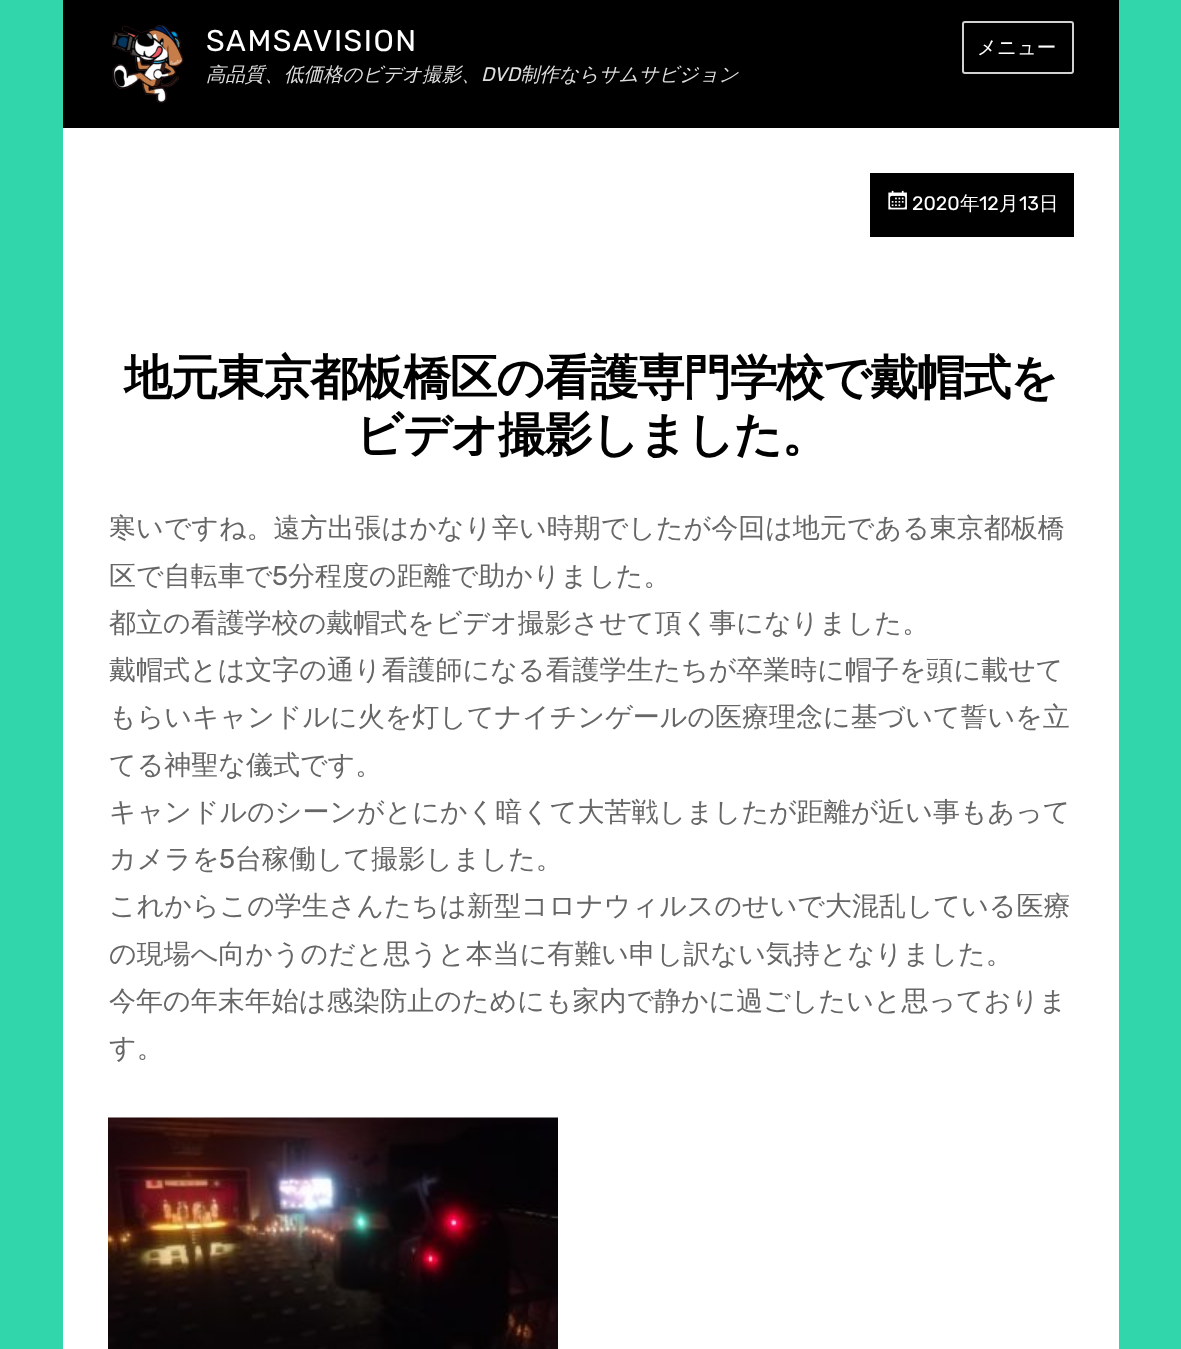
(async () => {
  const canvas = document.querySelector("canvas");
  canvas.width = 1181;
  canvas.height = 1349;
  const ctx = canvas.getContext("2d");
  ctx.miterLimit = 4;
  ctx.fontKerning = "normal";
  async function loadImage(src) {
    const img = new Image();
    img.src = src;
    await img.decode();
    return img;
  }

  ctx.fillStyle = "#31d6aa";
  ctx.fillRect(0, 0, 1181, 1349);
  ctx.fillStyle = "#000000";
  ctx.fillRect(63, 0, 1056, 128);
  ctx.drawImage(await loadImage("img/1.png"), 111, 25, 73, 78);
  ctx.beginPath();
  ctx.roundRect(963, 22, 110, 51, 2);
  ctx.strokeStyle = "#d1d1d1";
  ctx.lineWidth = 2;
  ctx.stroke();
  ctx.fillStyle = "#ffffff";
  ctx.fillRect(63, 128, 1056, 1221);
  ctx.fillStyle = "#000000";
  ctx.fillRect(870, 173, 204, 64);
  ctx.drawImage(await loadImage("img/2.png"), 888, 190, 19, 20);
  ctx.drawImage(await loadImage("img/3.png"), 108, 1117, 450, 232);
  ctx.letterSpacing = "1.5px";
  ctx.font = "300 30px Rubik";
  ctx.fillStyle = "#ffffff";
  ctx.fillText("SAMSAVISION", 206, 51);
  ctx.letterSpacing = "0px";
  ctx.font = "italic 500 19.5px WenQuanYi Zen Hei";
  ctx.fillStyle = "#dddddd";
  ctx.fillText("高品質、低価格のビデオ撮影、", 206, 81);
  ctx.font = "italic 300 19.5px Rubik";
  ctx.fillText("DVD", 481, 81);
  ctx.font = "italic 500 19.5px WenQuanYi Zen Hei";
  ctx.fillText("制作ならサムサビジョン", 520, 81);
  ctx.font = "500 19.5px WenQuanYi Zen Hei";
  ctx.fillStyle = "#ffffff";
  ctx.fillText("メニュー", 977, 54);
  ctx.font = "300 19.5px Rubik";
  ctx.fillText("2020", 912, 210);
  ctx.font = "500 19.5px WenQuanYi Zen Hei";
  ctx.fillText("年", 960, 210);
  ctx.font = "300 19.5px Rubik";
  ctx.fillText("12", 979, 210);
  ctx.font = "500 19.5px WenQuanYi Zen Hei";
  ctx.fillText("月", 999, 210);
  ctx.font = "300 19.5px Rubik";
  ctx.fillText("13", 1019, 210);
  ctx.font = "500 19.5px WenQuanYi Zen Hei";
  ctx.fillText("日", 1039, 210);
  ctx.letterSpacing = "-1.5px";
  ctx.font = "bold 48px WenQuanYi Zen Hei";
  ctx.fillStyle = "#000000";
  ctx.fillText("地元東京都板橋区の看護専門学校で戴帽式を", 124, 394);
  ctx.fillText("ビデオ撮影しました。", 355, 451);
  ctx.letterSpacing = "0px";
  ctx.font = "500 27px WenQuanYi Zen Hei";
  ctx.fillStyle = "#666666";
  ctx.fillText("寒いですね。遠方出張はかなり辛い時期でしたが今回は地元である東京都板橋", 109, 537);
  ctx.fillText("区で自転車で", 109, 585);
  ctx.font = "300 27px Rubik";
  ctx.fillText("5", 272, 585);
  ctx.font = "500 27px WenQuanYi Zen Hei";
  for (const [text, x, y] of [
    ["分程度の距離で助かりました。", 288, 585],
    ["都立の看護学校の戴帽式をビデオ撮影させて頂く事になりました。", 109, 632],
    ["戴帽式とは文字の通り看護師になる看護学生たちが卒業時に帽子を頭に載せて", 109, 679],
    ["もらいキャンドルに火を灯してナイチンゲールの医療理念に基づいて誓いを立", 109, 726],
    ["てる神聖な儀式です。", 109, 774],
    ["キャンドルのシーンがとにかく暗くて大苦戦しましたが距離が近い事もあって", 109, 821],
    ["カメラを", 109, 868],
  ]) {
    ctx.fillText(text, x, y);
  }
  ctx.font = "300 27px Rubik";
  ctx.fillText("5", 219, 868);
  ctx.font = "500 27px WenQuanYi Zen Hei";
  for (const [text, x, y] of [
    ["台稼働して撮影しました。", 235, 868],
    ["これからこの学生さんたちは新型コロナウィルスのせいで大混乱している医療", 109, 915],
    ["の現場へ向かうのだと思うと本当に有難い申し訳ない気持となりました。", 109, 963],
    ["今年の年末年始は感染防止のためにも家内で静かに過ごしたいと思っておりま", 109, 1010],
    ["す。", 109, 1057],
  ]) {
    ctx.fillText(text, x, y);
  }
})();
